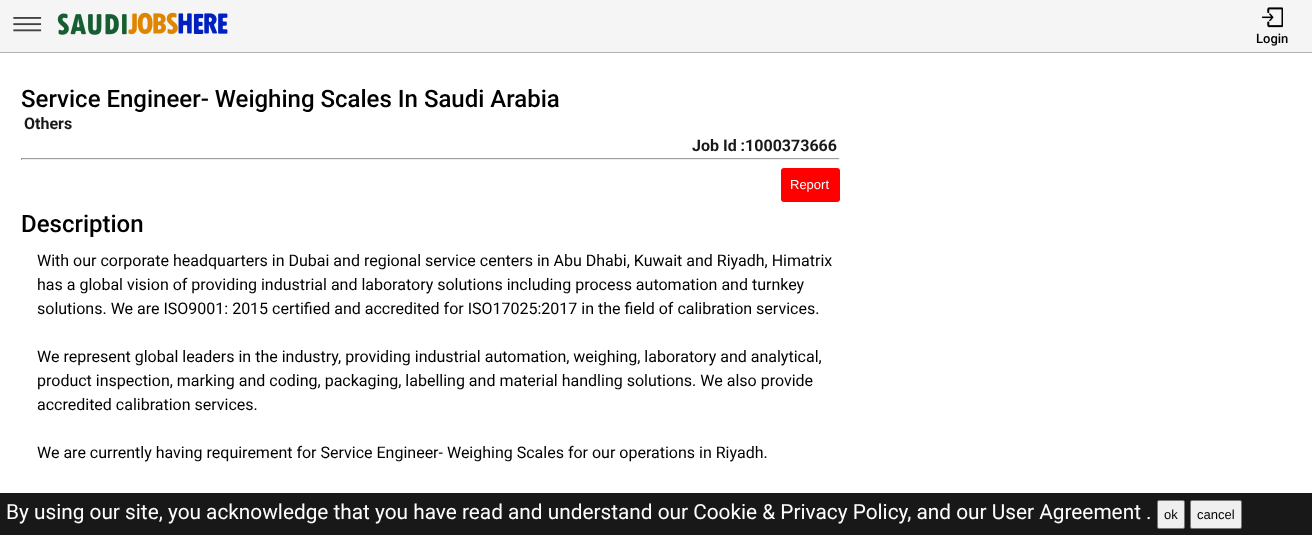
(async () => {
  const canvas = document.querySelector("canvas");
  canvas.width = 1312;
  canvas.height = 535;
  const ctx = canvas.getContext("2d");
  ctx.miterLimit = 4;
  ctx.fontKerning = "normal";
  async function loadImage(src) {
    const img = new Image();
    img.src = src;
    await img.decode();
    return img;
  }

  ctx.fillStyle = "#ffffff";
  ctx.fillRect(0, 0, 1312, 535);
  ctx.fillStyle = "rgba(0, 0, 0, 0.3)";
  ctx.filter = "blur(0.5px)";
  ctx.beginPath();
  ctx.rect(0, 0, 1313, 53);
  ctx.fill();
  ctx.filter = "none";
  ctx.fillStyle = "#f5f5f5";
  ctx.fillRect(0, 0, 1312, 52);
  ctx.drawImage(await loadImage("img/1.png"), 13, 17, 29, 15);
  ctx.drawImage(await loadImage("img/2.png"), 57, 12, 171, 23);
  ctx.drawImage(await loadImage("img/3.png"), 1261, 7, 22, 21);
  for (const [x, y, w, h, color] of [
    [21, 158, 819, 1, "#9f9f9f"],
    [839, 158, 1, 2, "#eeeeee"],
    [21, 159, 819, 1, "#eeeeee"],
    [21, 158, 1, 2, "#9f9f9f"],
  ]) {
    ctx.fillStyle = color;
    ctx.fillRect(x, y, w, h);
  }
  ctx.fillStyle = "#ff0000";
  ctx.beginPath();
  ctx.roundRect(781, 168, 59, 34, 3);
  ctx.fill();
  ctx.fillStyle = "#181818";
  ctx.fillRect(0, 493, 1312, 42);
  ctx.fillStyle = "#efefef";
  ctx.beginPath();
  ctx.roundRect(1157.5, 500.5, 27, 28, 1.5);
  ctx.fill();
  ctx.strokeStyle = "#767676";
  ctx.stroke();
  ctx.beginPath();
  ctx.roundRect(1190.5, 500.5, 51, 28, 1.5);
  ctx.fill();
  ctx.stroke();
  ctx.font = "500 13px Roboto";
  ctx.fillStyle = "#000000";
  ctx.fillText("Login", 1256, 43);
  ctx.font = "500 24px Roboto";
  ctx.fillText("Service Engineer- Weighing Scales In Saudi Arabia", 21, 107);
  ctx.font = "bold 16px Roboto";
  ctx.fillStyle = "#181818";
  ctx.fillText("Others", 24, 129);
  ctx.fillText("Job Id :1000373666", 692, 151);
  ctx.font = "13px Liberation Sans";
  ctx.fillStyle = "#ffffff";
  ctx.fillText("Report", 790, 189);
  ctx.font = "500 24px Roboto";
  ctx.fillStyle = "#000000";
  ctx.fillText("Description", 21, 232);
  ctx.font = "16px Roboto";
  for (const [text, x, y] of [
    ["With our corporate headquarters in Dubai and regional service centers in Abu Dhabi, Kuwait and Riyadh, Himatrix", 37, 266],
    ["has a global vision of providing industrial and laboratory solutions including process automation and turnkey", 37, 290],
    ["solutions. We are ISO9001: 2015 certified and accredited for ISO17025:2017 in the field of calibration services.", 37, 314],
    ["We represent global leaders in the industry, providing industrial automation, weighing, laboratory and analytical,", 37, 362],
    ["product inspection, marking and coding, packaging, labelling and material handling solutions. We also provide", 37, 386],
    ["accredited calibration services.", 37, 410],
    ["We are currently having requirement for Service Engineer- Weighing Scales for our operations in Riyadh.", 37, 458],
  ]) {
    ctx.fillText(text, x, y);
  }
  ctx.font = "20.8px Roboto";
  ctx.fillStyle = "#ffffff";
  ctx.fillText("By using our site, you acknowledge that you have read and understand our Cookie & Privacy Policy, and our User Agreement .", 6, 519);
  ctx.font = "13px Liberation Sans";
  ctx.fillStyle = "#000000";
  ctx.fillText("ok", 1164, 519);
  ctx.fillText("cancel", 1197, 519);
})();
